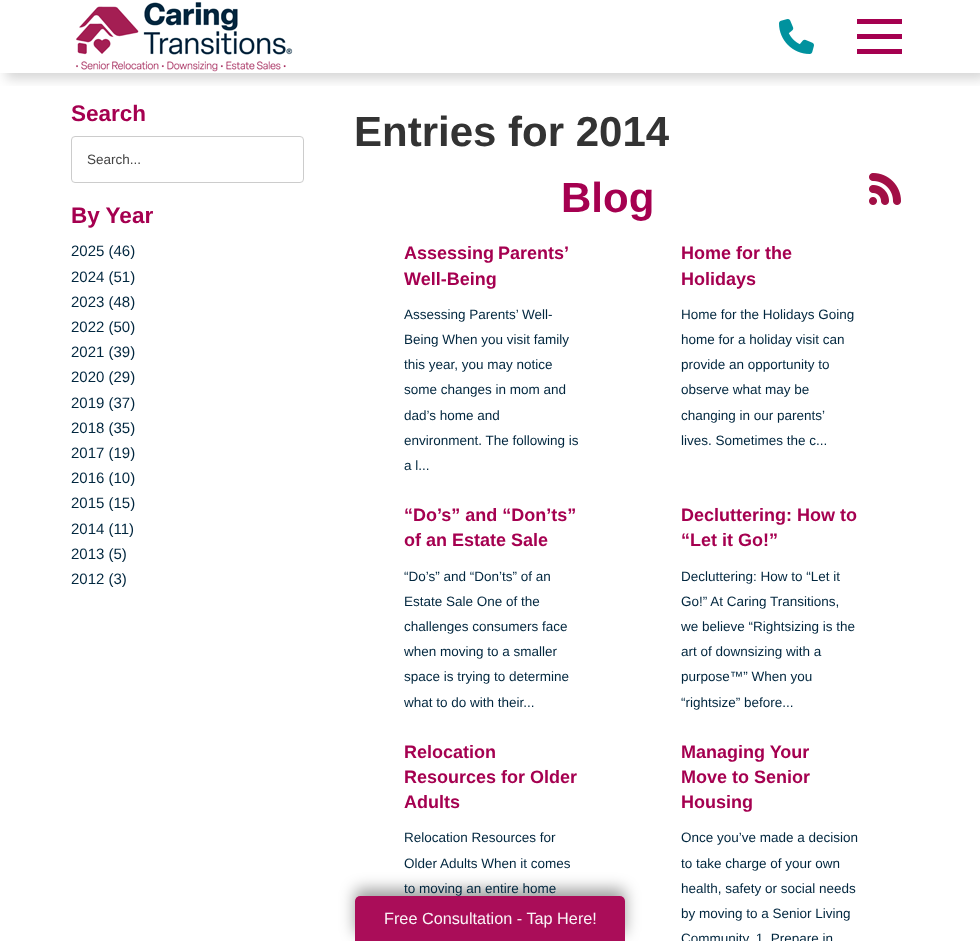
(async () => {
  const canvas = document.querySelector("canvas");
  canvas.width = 980;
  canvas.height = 941;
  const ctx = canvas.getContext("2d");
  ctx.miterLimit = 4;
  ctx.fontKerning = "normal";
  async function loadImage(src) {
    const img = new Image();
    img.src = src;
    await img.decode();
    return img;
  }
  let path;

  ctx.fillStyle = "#ffffff";
  ctx.fillRect(0, 0, 980, 941);
  ctx.save();
  ctx.beginPath();
  ctx.rect(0, 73, 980, 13);
  ctx.clip();
  ctx.fillStyle = "rgba(0, 0, 0, 0.16)";
  ctx.filter = "blur(6px)";
  ctx.beginPath();
  ctx.rect(6, 6, 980, 73);
  ctx.fill();
  ctx.filter = "none";
  ctx.restore();
  ctx.drawImage(await loadImage("img/1.png"), 76, 2, 217, 70);
  ctx.drawImage(await loadImage("img/2.png"), 779, 19, 35, 35);
  for (const [x, y, w, h, color] of [
    [857, 19, 45, 5, "#a50050"],
    [857, 34, 45, 5, "#a50050"],
    [857, 49, 45, 5, "#a50050"],
  ]) {
    ctx.fillStyle = color;
    ctx.fillRect(x, y, w, h);
  }
  ctx.beginPath();
  ctx.roundRect(71.5, 136.5, 232, 46, 3.5);
  ctx.strokeStyle = "#cccccc";
  ctx.stroke();
  ctx.drawImage(await loadImage("img/3.png"), 869, 173, 32, 32);
  ctx.save();
  path = new Path2D("M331 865H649V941H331ZM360 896H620C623 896 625 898 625 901V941H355V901C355 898 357 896 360 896Z");
  ctx.clip(path, "evenodd");
  ctx.fillStyle = "rgba(0, 0, 0, 0.38)";
  ctx.filter = "blur(7.5px)";
  ctx.beginPath();
  ctx.roundRect(355, 889, 270, 45, 5);
  ctx.fill();
  ctx.filter = "none";
  ctx.restore();
  ctx.fillStyle = "rgba(165, 0, 80, 0.95)";
  ctx.beginPath();
  ctx.roundRect(355, 896, 270, 45, [5, 5, 0, 0]);
  ctx.fill();
  ctx.font = "bold 22.5px Liberation Sans";
  ctx.fillStyle = "#a50050";
  ctx.fillText("Search", 71, 121);
  ctx.font = "13.5px Liberation Sans";
  ctx.fillStyle = "#444444";
  ctx.fillText("Search...", 87, 164);
  ctx.font = "bold 22.5px Liberation Sans";
  ctx.fillStyle = "#a50050";
  ctx.fillText("By Year", 71, 223);
  ctx.font = "15px Liberation Sans";
  ctx.fillStyle = "#00263e";
  for (const [text, x, y] of [
    ["2025 (46)", 71, 256],
    ["2024 (51)", 71, 282],
    ["2023 (48)", 71, 307],
    ["2022 (50)", 71, 332],
    ["2021 (39)", 71, 357],
    ["2020 (29)", 71, 382],
    ["2019 (37)", 71, 408],
    ["2018 (35)", 71, 433],
    ["2017 (19)", 71, 458],
    ["2016 (10)", 71, 483],
    ["2015 (15)", 71, 508],
    ["2014 (11)", 71, 534],
    ["2013 (5)", 71, 559],
    ["2012 (3)", 71, 584],
  ]) {
    ctx.fillText(text, x, y);
  }
  ctx.font = "bold 42px Liberation Sans";
  ctx.fillStyle = "#333333";
  ctx.fillText("Entries for 2014", 354, 146);
  ctx.fillStyle = "#a50050";
  ctx.fillText("Blog", 561, 212);
  ctx.wordSpacing = "-1px";
  ctx.font = "bold 18px Liberation Sans";
  ctx.fillText("Assessing Parents’", 404, 259);
  ctx.wordSpacing = "0px";
  ctx.fillText("Well-Being", 404, 285);
  ctx.font = "13.5px Liberation Sans";
  ctx.fillStyle = "#00263e";
  for (const [text, x, y] of [
    ["Assessing Parents’ Well-", 404, 319],
    ["Being When you visit family", 404, 344],
    ["this year, you may notice", 404, 369],
    ["some changes in mom and", 404, 394],
    ["dad’s home and", 404, 420],
    ["environment. The following is", 404, 445],
    ["a l...", 404, 470],
  ]) {
    ctx.fillText(text, x, y);
  }
  ctx.font = "bold 18px Liberation Sans";
  ctx.fillStyle = "#a50050";
  ctx.fillText("Home for the", 681, 259);
  ctx.fillText("Holidays", 681, 285);
  ctx.font = "13.5px Liberation Sans";
  ctx.fillStyle = "#00263e";
  for (const [text, x, y] of [
    ["Home for the Holidays Going", 681, 319],
    ["home for a holiday visit can", 681, 344],
    ["provide an opportunity to", 681, 369],
    ["observe what may be", 681, 394],
    ["changing in our parents’", 681, 420],
    ["lives. Sometimes the c...", 681, 445],
  ]) {
    ctx.fillText(text, x, y);
  }
  ctx.font = "bold 18px Liberation Sans";
  ctx.fillStyle = "#a50050";
  ctx.fillText("“Do’s” and “Don’ts”", 404, 521);
  ctx.fillText("of an Estate Sale", 404, 546);
  ctx.font = "13.5px Liberation Sans";
  ctx.fillStyle = "#00263e";
  for (const [text, x, y] of [
    ["“Do’s” and “Don’ts” of an", 404, 581],
    ["Estate Sale One of the", 404, 606],
    ["challenges consumers face", 404, 631],
    ["when moving to a smaller", 404, 656],
    ["space is trying to determine", 404, 681],
    ["what to do with their...", 404, 707],
  ]) {
    ctx.fillText(text, x, y);
  }
  ctx.font = "bold 18px Liberation Sans";
  ctx.fillStyle = "#a50050";
  ctx.fillText("Decluttering: How to", 681, 521);
  ctx.fillText("“Let it Go!”", 681, 546);
  ctx.font = "13.5px Liberation Sans";
  ctx.fillStyle = "#00263e";
  for (const [text, x, y] of [
    ["Decluttering: How to “Let it", 681, 581],
    ["Go!” At Caring Transitions,", 681, 606],
    ["we believe “Rightsizing is the", 681, 631],
    ["art of downsizing with a", 681, 656],
    ["purpose™” When you", 681, 681],
    ["“rightsize” before...", 681, 707],
  ]) {
    ctx.fillText(text, x, y);
  }
  ctx.font = "bold 18px Liberation Sans";
  ctx.fillStyle = "#a50050";
  for (const [text, x, y] of [
    ["Relocation", 404, 758],
    ["Resources for Older", 404, 783],
    ["Adults", 404, 808],
  ]) {
    ctx.fillText(text, x, y);
  }
  ctx.font = "13.5px Liberation Sans";
  ctx.fillStyle = "#00263e";
  for (const [text, x, y] of [
    ["Relocation Resources for", 404, 842],
    ["Older Adults When it comes", 404, 868],
    ["to moving an entire home", 404, 893],
  ]) {
    ctx.fillText(text, x, y);
  }
  ctx.font = "bold 18px Liberation Sans";
  ctx.fillStyle = "#a50050";
  for (const [text, x, y] of [
    ["Managing Your", 681, 758],
    ["Move to Senior", 681, 783],
    ["Housing", 681, 808],
  ]) {
    ctx.fillText(text, x, y);
  }
  ctx.font = "13.5px Liberation Sans";
  ctx.fillStyle = "#00263e";
  for (const [text, x, y] of [
    ["Once you’ve made a decision", 681, 842],
    ["to take charge of your own", 681, 868],
    ["health, safety or social needs", 681, 893],
    ["by moving to a Senior Living", 681, 918],
    ["Community, 1. Prepare in", 681, 943],
  ]) {
    ctx.fillText(text, x, y);
  }
  ctx.font = "16.25px Liberation Sans";
  ctx.fillStyle = "#fbf3f7";
  ctx.fillText("Free Consultation - Tap Here!", 384, 924);
})();
